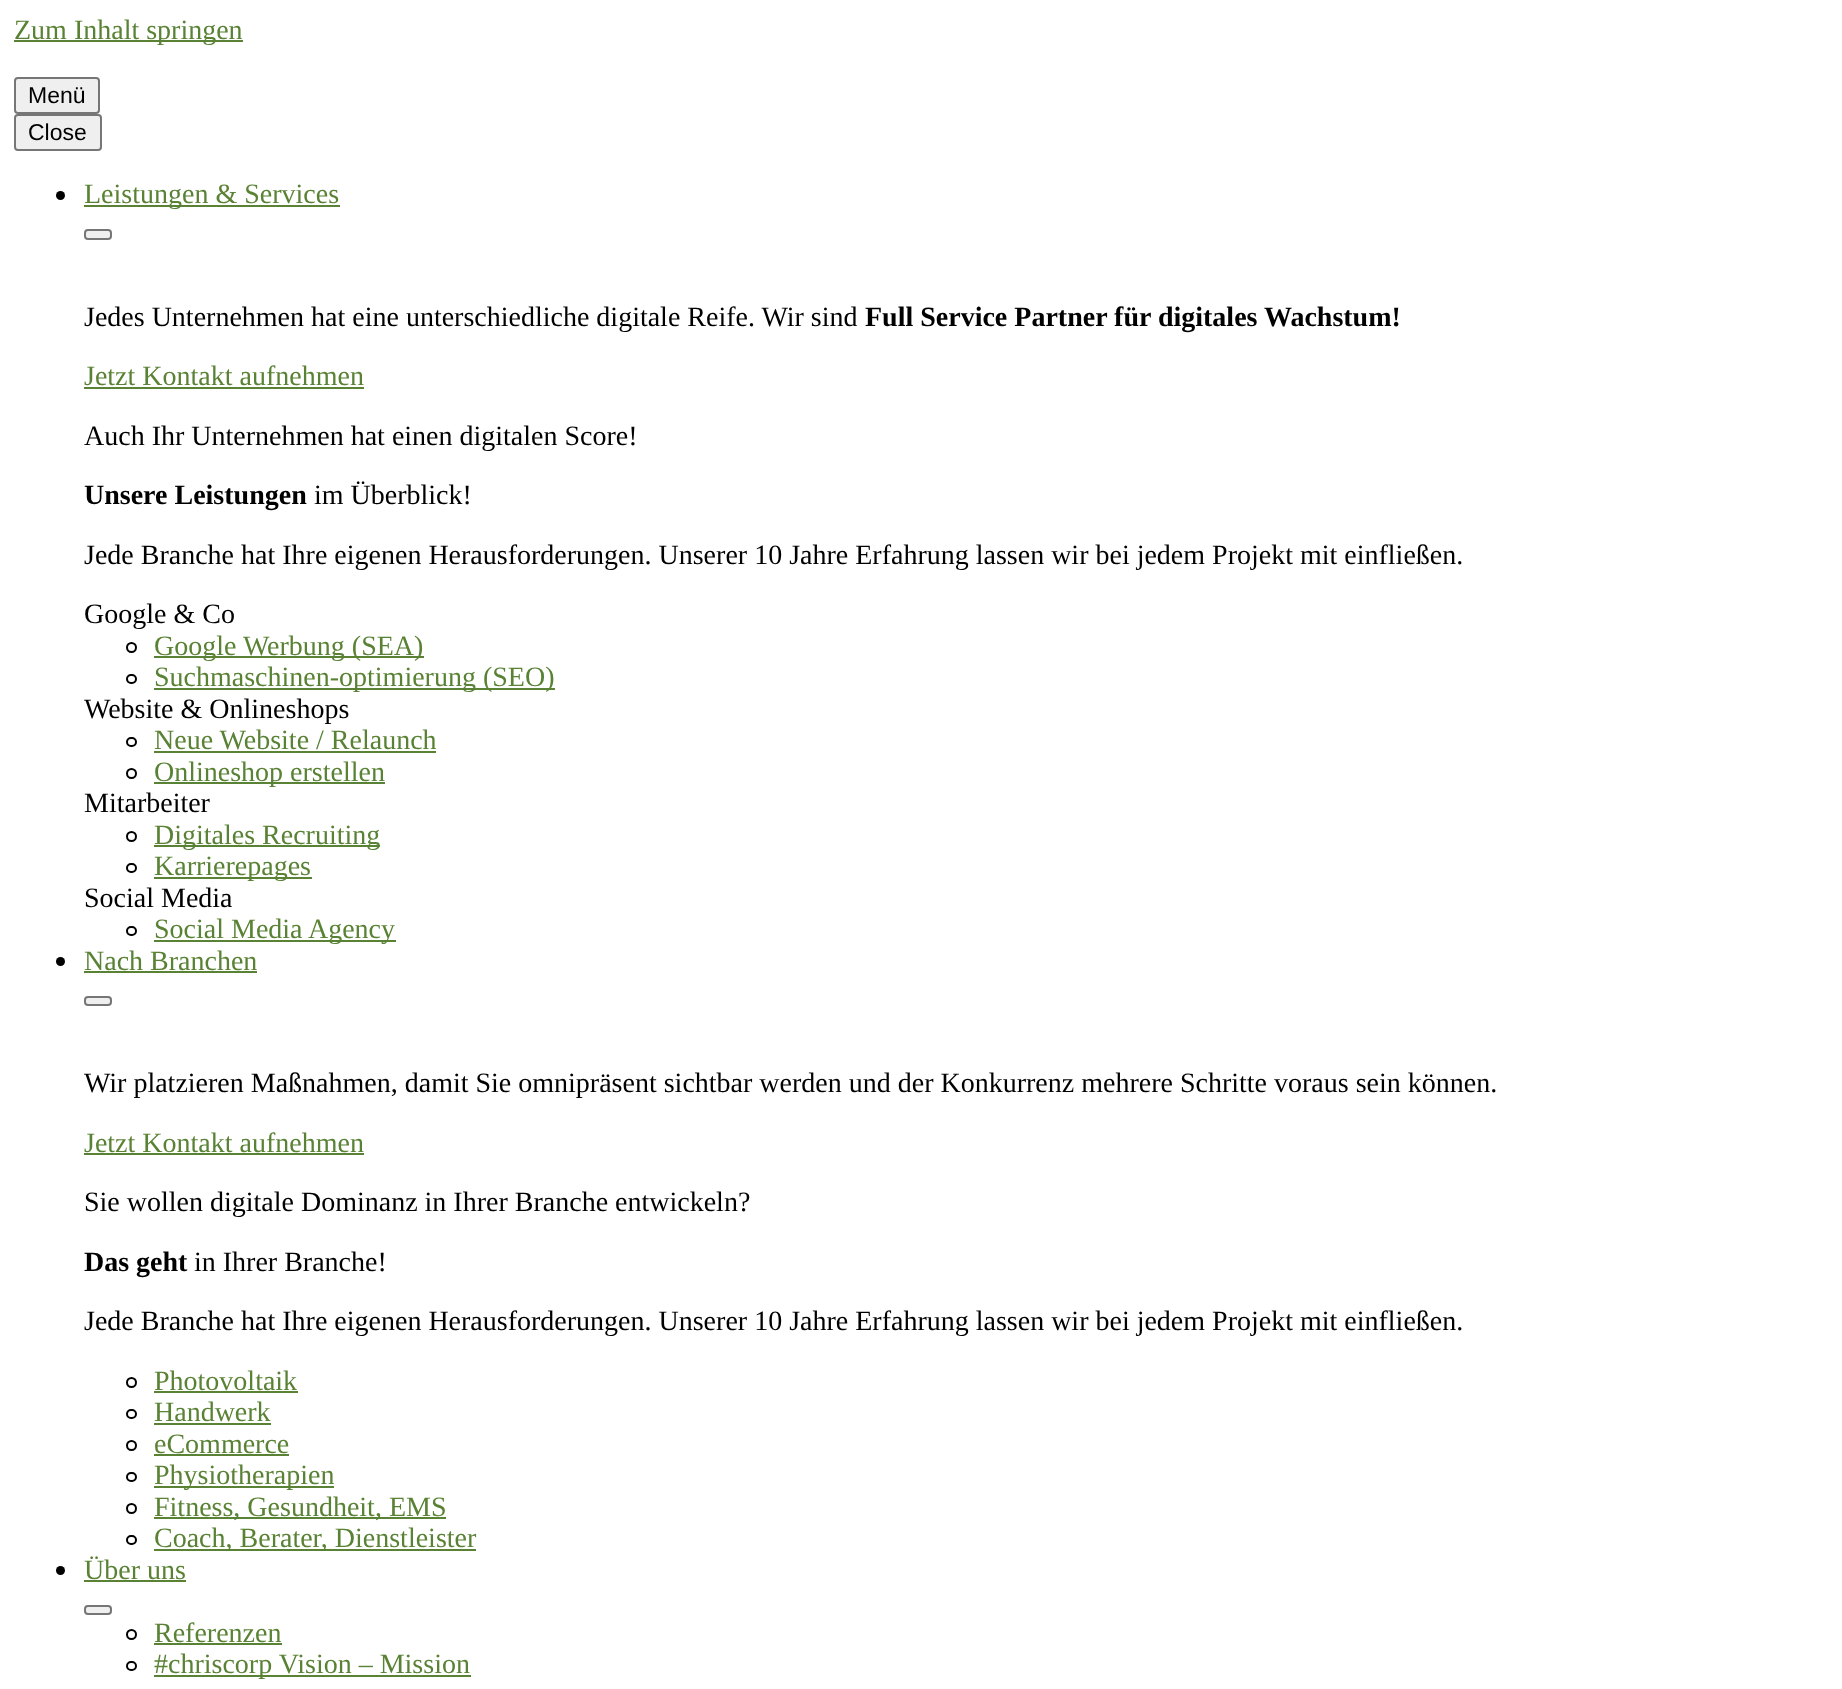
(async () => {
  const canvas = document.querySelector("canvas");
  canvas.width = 1842;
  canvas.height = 1689;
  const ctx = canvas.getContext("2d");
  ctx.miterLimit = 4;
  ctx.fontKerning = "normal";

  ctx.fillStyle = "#ffffff";
  ctx.fillRect(0, 0, 1842, 1689);
  ctx.fillStyle = "#598234";
  ctx.fillRect(14, 40, 229, 2);
  ctx.fillStyle = "#efefef";
  ctx.beginPath();
  ctx.roundRect(15, 78, 84, 35, 3);
  ctx.fill();
  ctx.strokeStyle = "#767676";
  ctx.lineWidth = 2;
  ctx.stroke();
  ctx.beginPath();
  ctx.roundRect(15, 115, 86, 35, 3);
  ctx.fill();
  ctx.stroke();
  ctx.fillStyle = "#000000";
  ctx.beginPath();
  ctx.arc(60.5, 195.5, 4.5, 0, Math.PI * 2);
  ctx.fill();
  ctx.fillStyle = "#598234";
  ctx.fillRect(84, 205, 256, 2);
  ctx.fillStyle = "#efefef";
  ctx.beginPath();
  ctx.roundRect(85, 230, 26, 9, 3);
  ctx.fill();
  ctx.stroke();
  ctx.fillStyle = "#598234";
  ctx.fillRect(84, 387, 280, 2);
  ctx.beginPath();
  ctx.arc(131.5, 647.5, 4.5, 0, Math.PI * 2);
  ctx.strokeStyle = "#000000";
  ctx.stroke();
  ctx.fillRect(154, 656, 270, 2);
  ctx.beginPath();
  ctx.roundRect(127, 675, 9, 8, 4);
  ctx.stroke();
  ctx.fillRect(154, 688, 401, 2);
  ctx.beginPath();
  ctx.roundRect(127, 738, 9, 8, 4);
  ctx.stroke();
  ctx.fillRect(154, 751, 282, 2);
  ctx.beginPath();
  ctx.arc(131.5, 773.5, 4.5, 0, Math.PI * 2);
  ctx.stroke();
  ctx.fillRect(154, 782, 231, 2);
  ctx.beginPath();
  ctx.arc(131.5, 836.5, 4.5, 0, Math.PI * 2);
  ctx.stroke();
  ctx.fillRect(154, 845, 226, 2);
  ctx.beginPath();
  ctx.roundRect(127, 864, 9, 8, 4);
  ctx.stroke();
  ctx.fillRect(154, 877, 158, 2);
  ctx.beginPath();
  ctx.roundRect(127, 927, 9, 8, 4);
  ctx.stroke();
  ctx.fillRect(154, 940, 242, 2);
  ctx.fillStyle = "#000000";
  ctx.beginPath();
  ctx.arc(60.5, 961.5, 4.5, 0, Math.PI * 2);
  ctx.fill();
  ctx.fillStyle = "#598234";
  ctx.fillRect(84, 971, 173, 2);
  ctx.fillStyle = "#efefef";
  ctx.beginPath();
  ctx.roundRect(85, 997, 26, 8, 3);
  ctx.fill();
  ctx.strokeStyle = "#767676";
  ctx.stroke();
  ctx.fillStyle = "#598234";
  ctx.fillRect(84, 1153, 280, 2);
  ctx.beginPath();
  ctx.arc(131.5, 1382.5, 4.5, 0, Math.PI * 2);
  ctx.strokeStyle = "#000000";
  ctx.stroke();
  ctx.fillRect(154, 1391, 144, 2);
  ctx.beginPath();
  ctx.roundRect(127, 1410, 9, 8, 4);
  ctx.stroke();
  ctx.fillRect(154, 1423, 117, 2);
  ctx.beginPath();
  ctx.arc(131.5, 1445.5, 4.5, 0, Math.PI * 2);
  ctx.stroke();
  ctx.fillRect(154, 1454, 135, 2);
  ctx.beginPath();
  ctx.roundRect(127, 1473, 9, 8, 4);
  ctx.stroke();
  ctx.fillRect(154, 1486, 180, 2);
  ctx.beginPath();
  ctx.arc(131.5, 1508.5, 4.5, 0, Math.PI * 2);
  ctx.stroke();
  ctx.fillRect(154, 1517, 292, 2);
  ctx.beginPath();
  ctx.roundRect(127, 1536, 9, 8, 4);
  ctx.stroke();
  ctx.fillRect(154, 1549, 322, 2);
  ctx.fillStyle = "#000000";
  ctx.beginPath();
  ctx.arc(60.5, 1570.5, 4.5, 0, Math.PI * 2);
  ctx.fill();
  ctx.fillStyle = "#598234";
  ctx.fillRect(84, 1580, 102, 2);
  ctx.fillStyle = "#efefef";
  ctx.beginPath();
  ctx.roundRect(85, 1606, 26, 8, 3);
  ctx.fill();
  ctx.strokeStyle = "#767676";
  ctx.stroke();
  ctx.beginPath();
  ctx.arc(131.5, 1634.5, 4.5, 0, Math.PI * 2);
  ctx.strokeStyle = "#000000";
  ctx.stroke();
  ctx.fillStyle = "#598234";
  ctx.fillRect(154, 1643, 128, 2);
  ctx.beginPath();
  ctx.roundRect(127, 1662, 9, 8, 4);
  ctx.stroke();
  ctx.fillRect(154, 1675, 317, 2);
  ctx.font = "28px Liberation Serif";
  ctx.fillText("Zum Inhalt springen", 14, 39);
  ctx.font = "23px Liberation Sans";
  ctx.fillStyle = "#000000";
  ctx.fillText("Menü", 28, 103);
  ctx.fillText("Close", 28, 140);
  ctx.font = "28px Liberation Serif";
  ctx.fillStyle = "#598234";
  ctx.fillText("Leistungen & Services", 84, 203);
  ctx.fillStyle = "#000000";
  ctx.fillText("Jedes Unternehmen hat eine unterschiedliche digitale Reife. Wir sind", 84, 326);
  ctx.font = "bold 28px Liberation Serif";
  ctx.fillText("Full Service Partner für digitales Wachstum!", 865, 326);
  ctx.font = "28px Liberation Serif";
  ctx.fillStyle = "#598234";
  ctx.fillText("Jetzt Kontakt aufnehmen", 84, 385);
  ctx.fillStyle = "#000000";
  ctx.fillText("Auch Ihr Unternehmen hat einen digitalen Score!", 84, 445);
  ctx.font = "bold 28px Liberation Serif";
  ctx.fillText("Unsere Leistungen", 84, 504);
  ctx.font = "28px Liberation Serif";
  for (const [text, x, y] of [
    ["im Überblick!", 314, 504],
    ["Jede Branche hat Ihre eigenen Herausforderungen. Unserer 10 Jahre Erfahrung lassen wir bei jedem Projekt mit einfließen.", 84, 564],
    ["Google & Co", 84, 623],
  ]) {
    ctx.fillText(text, x, y);
  }
  ctx.fillStyle = "#598234";
  ctx.fillText("Google Werbung (SEA)", 154, 655);
  ctx.fillText("Suchmaschinen-optimierung (SEO)", 154, 686);
  ctx.fillStyle = "#000000";
  ctx.fillText("Website & Onlineshops", 84, 718);
  ctx.fillStyle = "#598234";
  ctx.fillText("Neue Website / Relaunch", 154, 749);
  ctx.fillText("Onlineshop erstellen", 154, 781);
  ctx.fillStyle = "#000000";
  ctx.fillText("Mitarbeiter", 84, 812);
  ctx.fillStyle = "#598234";
  ctx.fillText("Digitales Recruiting", 154, 844);
  ctx.fillText("Karrierepages", 154, 875);
  ctx.fillStyle = "#000000";
  ctx.fillText("Social Media", 84, 907);
  ctx.fillStyle = "#598234";
  ctx.fillText("Social Media Agency", 154, 938);
  ctx.fillText("Nach Branchen", 84, 970);
  ctx.fillStyle = "#000000";
  ctx.fillText("Wir platzieren Maßnahmen, damit Sie omnipräsent sichtbar werden und der Konkurrenz mehrere Schritte voraus sein können.", 84, 1092);
  ctx.fillStyle = "#598234";
  ctx.fillText("Jetzt Kontakt aufnehmen", 84, 1152);
  ctx.fillStyle = "#000000";
  ctx.fillText("Sie wollen digitale Dominanz in Ihrer Branche entwickeln?", 84, 1211);
  ctx.font = "bold 28px Liberation Serif";
  ctx.fillText("Das geht", 84, 1271);
  ctx.font = "28px Liberation Serif";
  ctx.fillText("in Ihrer Branche!", 194, 1271);
  ctx.fillText("Jede Branche hat Ihre eigenen Herausforderungen. Unserer 10 Jahre Erfahrung lassen wir bei jedem Projekt mit einfließen.", 84, 1330);
  ctx.fillStyle = "#598234";
  for (const [text, x, y] of [
    ["Photovoltaik", 154, 1390],
    ["Handwerk", 154, 1421],
    ["eCommerce", 154, 1453],
    ["Physiotherapien", 154, 1484],
    ["Fitness, Gesundheit, EMS", 154, 1516],
    ["Coach, Berater, Dienstleister", 154, 1547],
    ["Über uns", 84, 1579],
    ["Referenzen", 154, 1642],
    ["#chriscorp Vision – Mission", 154, 1673],
  ]) {
    ctx.fillText(text, x, y);
  }
})();
